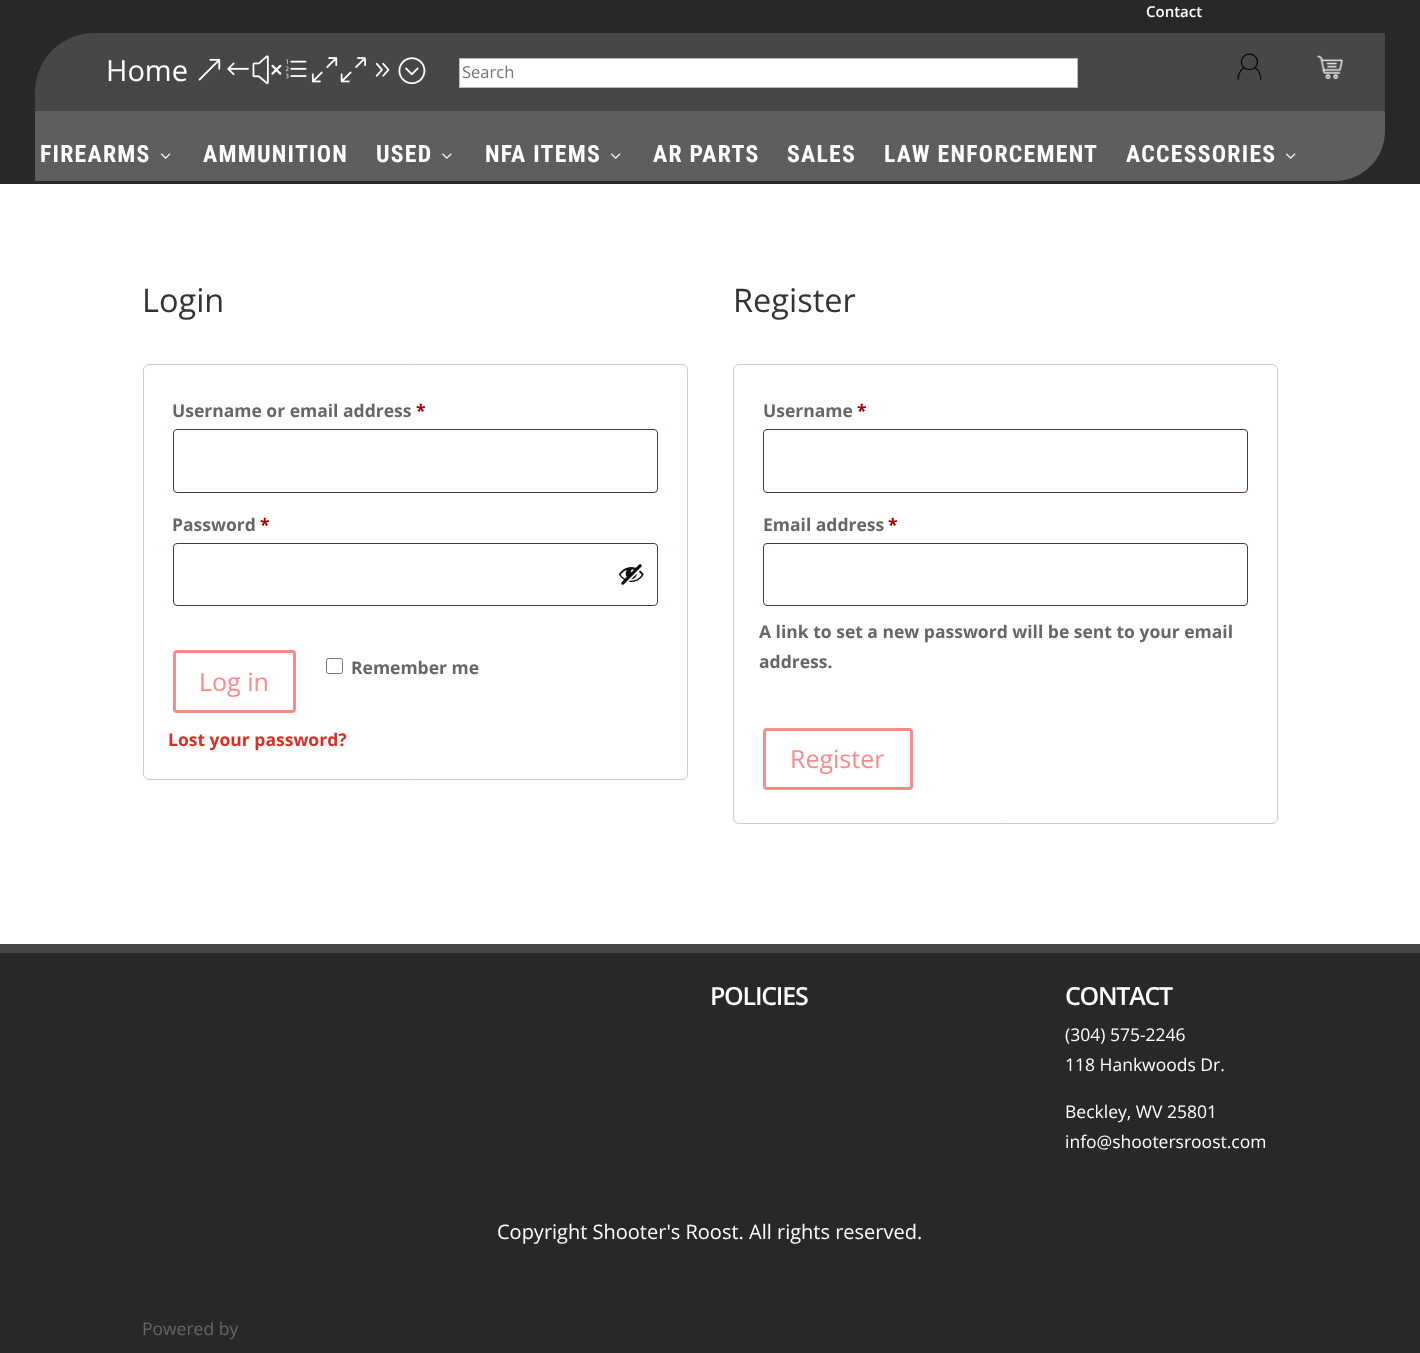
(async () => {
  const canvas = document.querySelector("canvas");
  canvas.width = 1420;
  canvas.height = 1353;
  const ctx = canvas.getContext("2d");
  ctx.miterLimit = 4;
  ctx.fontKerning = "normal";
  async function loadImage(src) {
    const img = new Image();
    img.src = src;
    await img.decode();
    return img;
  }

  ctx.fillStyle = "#ffffff";
  ctx.fillRect(0, 0, 1420, 1353);
  ctx.fillStyle = "#282828";
  ctx.fillRect(0, 0, 1420, 183);
  ctx.fillStyle = "#2b2b2b";
  ctx.fillRect(0, 183, 1420, 1);
  ctx.fillStyle = "#474747";
  ctx.beginPath();
  ctx.roundRect(35, 33, 1350, 91, [59, 0, 0, 0]);
  ctx.fill();
  ctx.drawImage(await loadImage("img/1.png"), 198, 55, 228, 30);
  ctx.fillStyle = "#ffffff";
  ctx.beginPath();
  ctx.rect(459.5, 58.5, 618, 29);
  ctx.fill();
  ctx.strokeStyle = "#bbbbbb";
  ctx.stroke();
  ctx.drawImage(await loadImage("img/2.png"), 1237, 53, 25, 27);
  ctx.drawImage(await loadImage("img/3.png"), 1317, 55, 26, 25);
  ctx.fillStyle = "#5e5e5e";
  ctx.beginPath();
  ctx.roundRect(35, 111, 1350, 70, [0, 0, 50, 0]);
  ctx.fill();
  ctx.drawImage(await loadImage("img/4.png"), 161, 153, 10, 6);
  ctx.drawImage(await loadImage("img/5.png"), 442, 153, 10, 6);
  ctx.drawImage(await loadImage("img/4.png"), 611, 153, 10, 6);
  ctx.drawImage(await loadImage("img/4.png"), 1286, 153, 10, 6);
  ctx.beginPath();
  ctx.roundRect(143.5, 364.5, 544, 415, 5.5);
  ctx.strokeStyle = "#cfc8d8";
  ctx.stroke();
  ctx.beginPath();
  ctx.roundRect(173.5, 429.5, 484, 63, 3.5);
  ctx.strokeStyle = "#4d3939";
  ctx.stroke();
  ctx.beginPath();
  ctx.roundRect(173.5, 543.5, 484, 62, 3.5);
  ctx.stroke();
  ctx.drawImage(await loadImage("img/6.png"), 618, 564, 26, 21);
  ctx.beginPath();
  ctx.roundRect(326.5, 658.5, 16, 15, 2);
  ctx.strokeStyle = "#767676";
  ctx.stroke();
  ctx.beginPath();
  ctx.roundRect(174.5, 651.5, 120, 60, 2.5);
  ctx.strokeStyle = "#ff8888";
  ctx.lineWidth = 3;
  ctx.stroke();
  ctx.beginPath();
  ctx.roundRect(733.5, 364.5, 544, 459, 5.5);
  ctx.strokeStyle = "#cfc8d8";
  ctx.lineWidth = 1;
  ctx.stroke();
  ctx.beginPath();
  ctx.roundRect(763.5, 429.5, 484, 63, 3.5);
  ctx.strokeStyle = "#4d3939";
  ctx.stroke();
  ctx.beginPath();
  ctx.roundRect(763.5, 543.5, 484, 62, 3.5);
  ctx.stroke();
  ctx.beginPath();
  ctx.roundRect(764.5, 729.5, 147, 59, 2.5);
  ctx.strokeStyle = "#ff8888";
  ctx.lineWidth = 3;
  ctx.stroke();
  ctx.fillStyle = "#474747";
  ctx.fillRect(0, 944, 1420, 9);
  ctx.fillStyle = "#282828";
  ctx.fillRect(0, 953, 1420, 400);
  ctx.font = "600 15px Open Sans";
  ctx.fillStyle = "#ffffff";
  ctx.fillText("Contact", 1146, 17);
  ctx.font = "29px Open Sans";
  ctx.fillText("Home", 106, 81);
  ctx.font = "16.5px Open Sans";
  ctx.fillStyle = "#757575";
  ctx.fillText("Search", 462, 78);
  ctx.letterSpacing = "1.25px";
  ctx.font = "bold 23.75px Roboto Condensed";
  ctx.fillStyle = "#ffffff";
  for (const [text, x, y] of [
    ["FIREARMS", 40, 162],
    ["AMMUNITION", 203, 162],
    ["USED", 376, 162],
    ["NFA ITEMS", 485, 162],
    ["AR PARTS", 653, 162],
    ["SALES", 787, 162],
    ["LAW ENFORCEMENT", 884, 162],
    ["ACCESSORIES", 1126, 162],
  ]) {
    ctx.fillText(text, x, y);
  }
  ctx.letterSpacing = "0px";
  ctx.font = "32.5px Open Sans";
  ctx.fillStyle = "#333333";
  ctx.fillText("Login", 142, 312);
  ctx.font = "bold 17.5px Open Sans";
  ctx.fillStyle = "#666666";
  ctx.fillText("Username or email address", 172, 417);
  ctx.fillStyle = "#aa0000";
  ctx.fillText("*", 416, 417);
  ctx.fillStyle = "#666666";
  ctx.fillText("Password", 172, 531);
  ctx.fillStyle = "#aa0000";
  ctx.fillText("*", 260, 531);
  ctx.fillStyle = "#666666";
  ctx.fillText("Remember me", 351, 674);
  ctx.font = "25px Open Sans";
  ctx.fillStyle = "#ff8888";
  ctx.fillText("Log in", 199, 691);
  ctx.font = "bold 17.5px Open Sans";
  ctx.fillStyle = "#e02b20";
  ctx.fillText("Lost your password?", 168, 746);
  ctx.font = "32.5px Open Sans";
  ctx.fillStyle = "#333333";
  ctx.fillText("Register", 733, 312);
  ctx.font = "bold 17.5px Open Sans";
  ctx.fillStyle = "#666666";
  ctx.fillText("Username", 763, 417);
  ctx.fillStyle = "#aa0000";
  ctx.fillText("*", 857, 417);
  ctx.fillStyle = "#666666";
  ctx.fillText("Email address", 763, 531);
  ctx.fillStyle = "#aa0000";
  ctx.fillText("*", 888, 531);
  ctx.fillStyle = "#666666";
  ctx.fillText("A link to set a new password will be sent to your email", 759, 638);
  ctx.fillText("address.", 759, 668);
  ctx.font = "25px Open Sans";
  ctx.fillStyle = "#ff8888";
  ctx.fillText("Register", 790, 768);
  ctx.letterSpacing = "-1.25px";
  ctx.font = "600 25px Open Sans";
  ctx.fillStyle = "#ffffff";
  ctx.fillText("POLICIES", 710, 1005);
  ctx.fillText("CONTACT", 1065, 1005);
  ctx.letterSpacing = "0px";
  ctx.font = "17.5px Open Sans";
  for (const [text, x, y] of [
    ["(304) 575-2246", 1065, 1041],
    ["118 Hankwoods Dr.", 1065, 1071],
    ["Beckley, WV 25801", 1065, 1118],
    ["info@shootersroost.com", 1065, 1148],
  ]) {
    ctx.fillText(text, x, y);
  }
  ctx.font = "20px Open Sans";
  ctx.fillText("Copyright Shooter's Roost. All rights reserved.", 497, 1239);
  ctx.font = "17.5px Open Sans";
  ctx.fillStyle = "#666666";
  ctx.fillText("Powered by", 142, 1335);
})();
